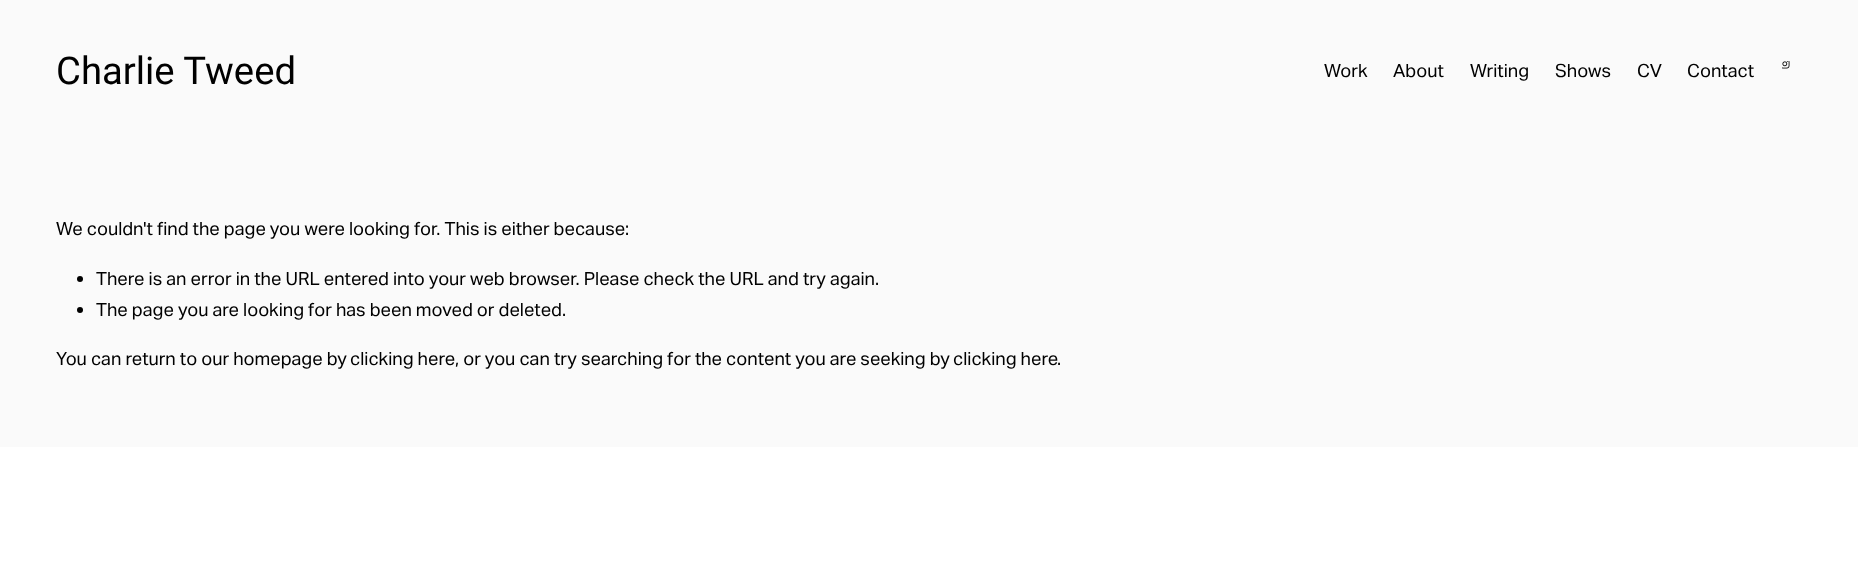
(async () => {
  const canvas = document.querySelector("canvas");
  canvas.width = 1858;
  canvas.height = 581;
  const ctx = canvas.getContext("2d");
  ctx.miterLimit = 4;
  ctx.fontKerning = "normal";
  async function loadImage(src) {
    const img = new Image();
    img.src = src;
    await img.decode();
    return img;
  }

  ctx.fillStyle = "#fafafa";
  ctx.fillRect(0, 0, 1858, 581);
  ctx.drawImage(await loadImage("img/1.png"), 1782, 61, 8, 8);
  ctx.fillStyle = "#000000";
  ctx.beginPath();
  ctx.arc(80, 279, 3, 0, Math.PI * 2);
  ctx.fill();
  ctx.beginPath();
  ctx.arc(80, 310, 3, 0, Math.PI * 2);
  ctx.fill();
  ctx.fillStyle = "#ffffff";
  ctx.fillRect(0, 447, 1858, 134);
  ctx.font = "38.25px Roboto";
  ctx.fillStyle = "#000000";
  ctx.fillText("Charlie Tweed", 56, 84);
  ctx.font = "18.25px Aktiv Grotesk";
  for (const [text, x, y] of [
    ["Work", 1324, 77],
    ["About", 1393, 77],
    ["Writing", 1470, 77],
    ["Shows", 1555, 77],
    ["CV", 1637, 77],
    ["Contact", 1687, 77],
    ["We couldn't find the page you were looking for. This is either because:", 56, 235],
    ["There is an error in the URL entered into your web browser. Please check the URL and try again.", 96, 285],
    ["The page you are looking for has been moved or deleted.", 96, 316],
    ["You can return to our homepage by", 56, 365],
    ["clicking here", 350, 365],
    [", or you can try searching for the content you are seeking by", 455, 365],
    ["clicking here", 953, 365],
    [".", 1057, 365],
  ]) {
    ctx.fillText(text, x, y);
  }
})();
